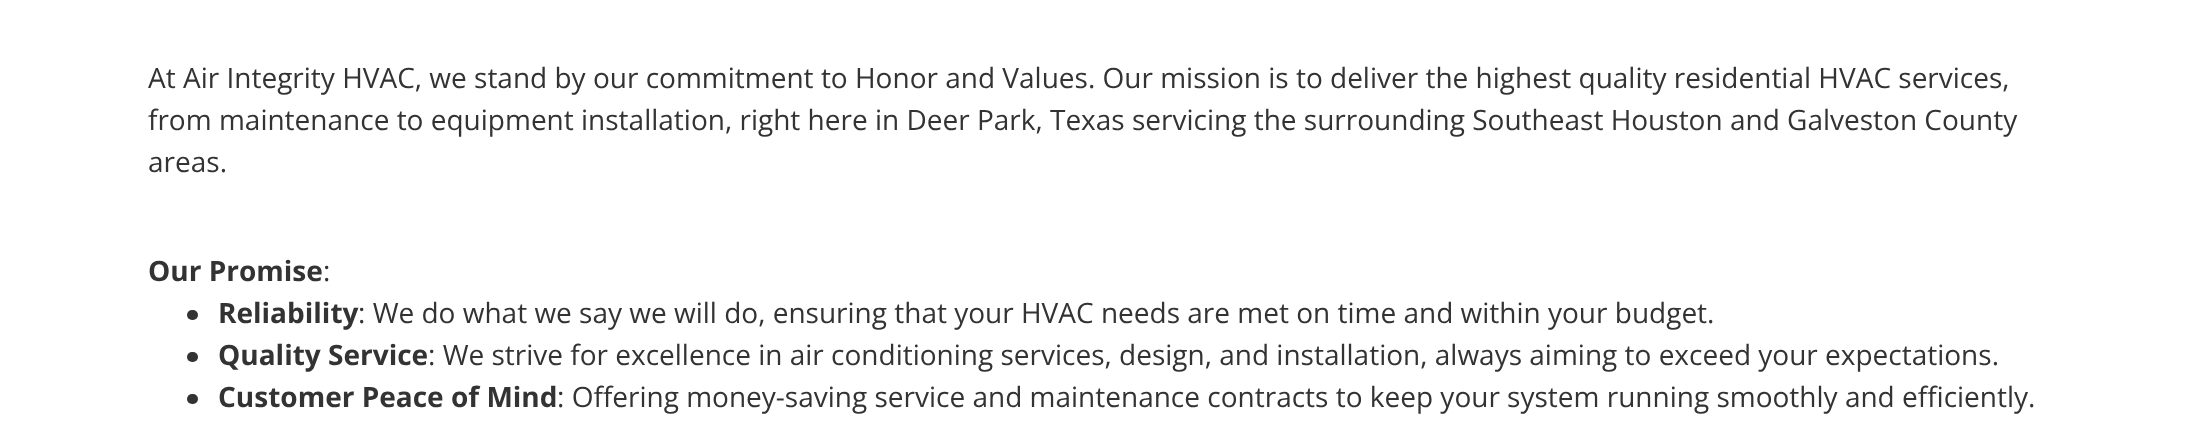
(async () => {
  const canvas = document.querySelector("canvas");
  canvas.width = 2203;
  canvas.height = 431;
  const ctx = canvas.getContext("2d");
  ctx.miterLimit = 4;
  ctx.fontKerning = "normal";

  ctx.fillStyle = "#ffffff";
  ctx.fillRect(0, 0, 2203, 431);
  ctx.fillStyle = "#333333";
  ctx.beginPath();
  ctx.roundRect(187, 310, 11, 10, 5);
  ctx.fill();
  ctx.beginPath();
  ctx.roundRect(187, 352, 11, 10, 5);
  ctx.fill();
  ctx.beginPath();
  ctx.roundRect(187, 394, 11, 10, 5);
  ctx.fill();
  ctx.font = "28px Open Sans";
  for (const [text, x, y] of [
    ["At Air Integrity HVAC, we stand by our commitment to Honor and Values. Our mission is to deliver the highest quality residential HVAC services,", 148, 88],
    ["from maintenance to equipment installation, right here in Deer Park, Texas servicing the surrounding Southeast Houston and Galveston County", 148, 130],
    ["areas.", 148, 172],
  ]) {
    ctx.fillText(text, x, y);
  }
  ctx.font = "bold 28px Open Sans";
  ctx.fillText("Our Promise", 148, 281);
  ctx.font = "28px Open Sans";
  ctx.fillText(":", 323, 281);
  ctx.font = "bold 28px Open Sans";
  ctx.fillText("Reliability", 218, 323);
  ctx.font = "28px Open Sans";
  ctx.fillText(": We do what we say we will do, ensuring that your HVAC needs are met on time and within your budget.", 358, 323);
  ctx.font = "bold 28px Open Sans";
  ctx.fillText("Quality Service", 218, 365);
  ctx.font = "28px Open Sans";
  ctx.fillText(": We strive for excellence in air conditioning services, design, and installation, always aiming to exceed your expectations.", 428, 365);
  ctx.font = "bold 28px Open Sans";
  ctx.fillText("Customer Peace of Mind", 218, 407);
  ctx.font = "28px Open Sans";
  ctx.fillText(": Offering money-saving service and maintenance contracts to keep your system running smoothly and efficiently.", 557, 407);
})();
